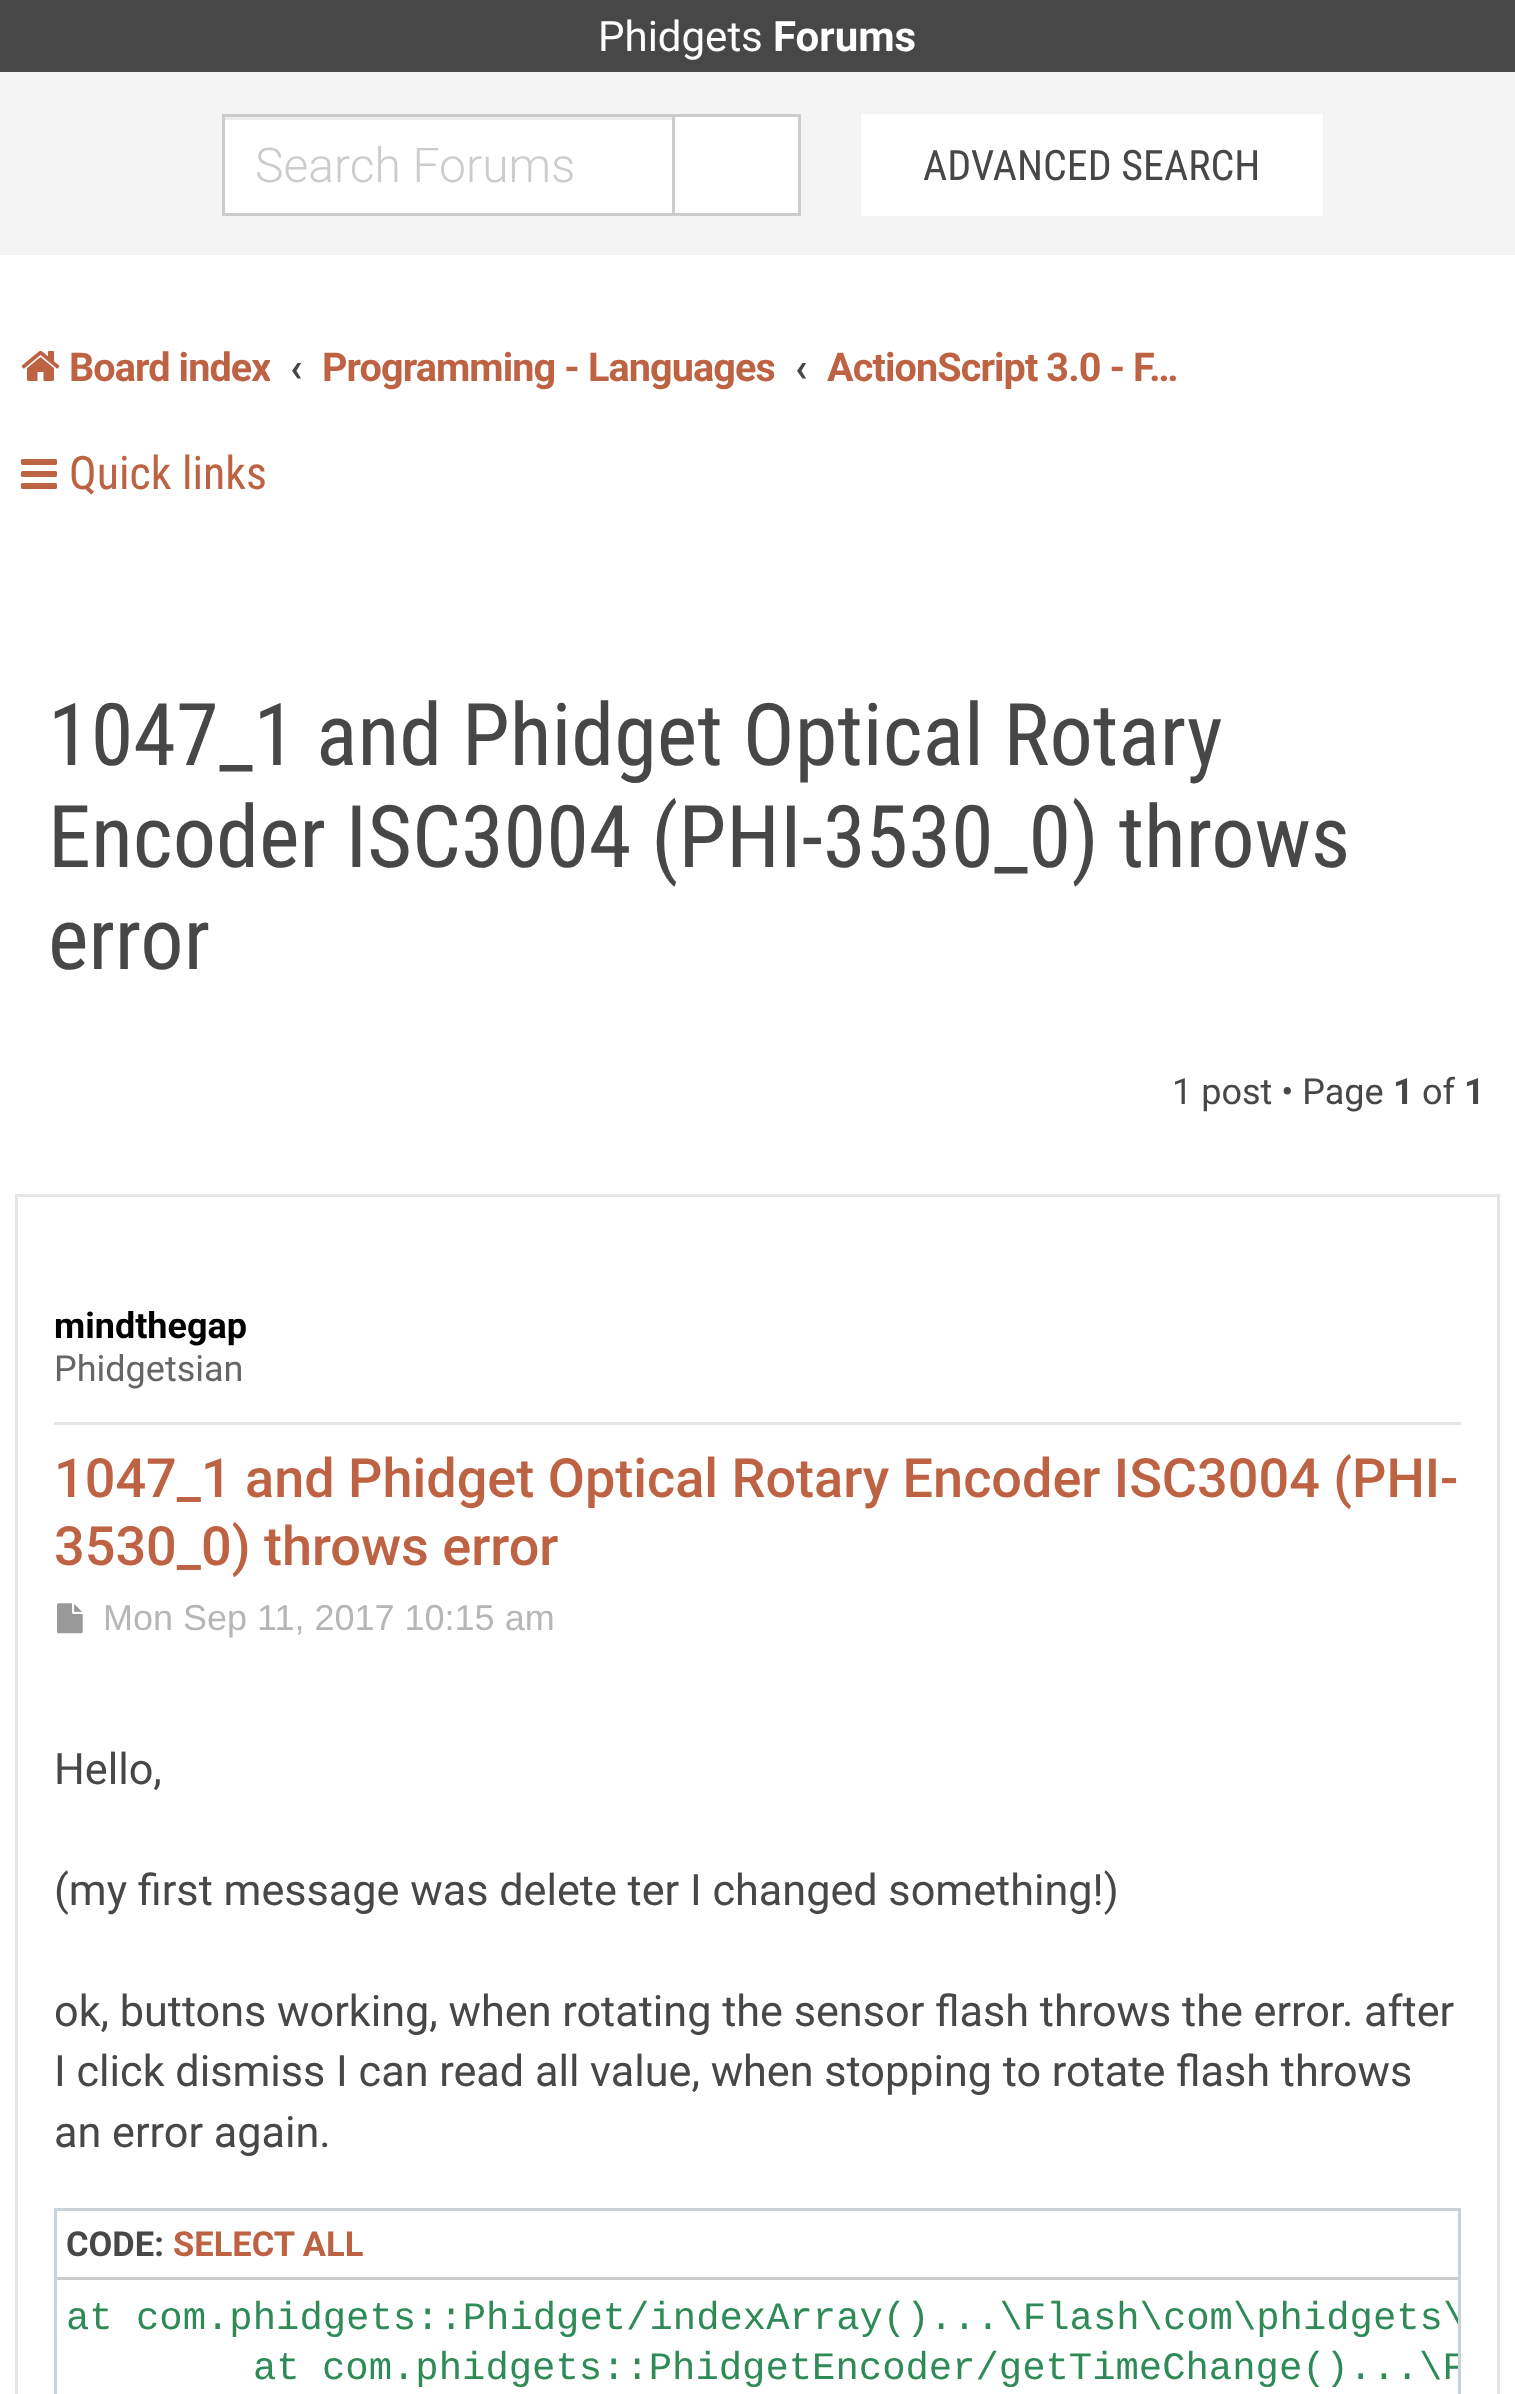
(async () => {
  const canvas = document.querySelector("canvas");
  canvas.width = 1515;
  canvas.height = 2394;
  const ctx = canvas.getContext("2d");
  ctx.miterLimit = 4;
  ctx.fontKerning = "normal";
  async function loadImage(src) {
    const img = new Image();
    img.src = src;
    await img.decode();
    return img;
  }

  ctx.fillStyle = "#ffffff";
  ctx.fillRect(0, 0, 1515, 2394);
  for (const [x, y, w, h, color] of [
    [0, 0, 1515, 72, "#474747"],
    [0, 72, 1515, 183, "#f4f4f4"],
    [225, 120, 447, 93, "#ffffff"],
    [225, 117, 447, 3, "#ececec"],
  ]) {
    ctx.fillStyle = color;
    ctx.fillRect(x, y, w, h);
  }
  ctx.strokeStyle = "#cccccc";
  ctx.lineWidth = 3;
  ctx.strokeRect(223.5, 115.5, 450, 99);
  for (const [x, y, w, h, color] of [
    [675, 117, 123, 96, "#ffffff"],
    [675, 114, 126, 3, "#cccccc"],
    [798, 114, 3, 102, "#cccccc"],
    [675, 213, 126, 3, "#cccccc"],
    [861, 114, 462, 102, "#ffffff"],
  ]) {
    ctx.fillStyle = color;
    ctx.fillRect(x, y, w, h);
  }
  ctx.drawImage(await loadImage("img/1.png"), 21, 350, 39, 31);
  ctx.drawImage(await loadImage("img/2.png"), 21, 459, 36, 30);
  ctx.strokeStyle = "#e6e6e6";
  ctx.strokeRect(16.5, 1195.5, 1482, 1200);
  ctx.fillStyle = "#e6e6e6";
  ctx.fillRect(54, 1422, 1407, 3);
  ctx.drawImage(await loadImage("img/3.png"), 57, 1603, 26, 31);
  ctx.strokeStyle = "#c9d2d8";
  ctx.strokeRect(55.5, 2209.5, 1404, 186);
  ctx.fillStyle = "#cccccc";
  ctx.fillRect(57, 2277, 1401, 3);
  ctx.font = "42px Roboto";
  ctx.fillStyle = "#ffffff";
  ctx.fillText("Phidgets", 598, 51);
  ctx.font = "bold 42px Roboto";
  ctx.fillText("Forums", 773, 51);
  ctx.font = "300 48px Roboto";
  ctx.fillStyle = "#cccccc";
  ctx.fillText("Search Forums", 255, 182);
  ctx.font = "42px Roboto Condensed";
  ctx.fillStyle = "#474747";
  ctx.fillText("ADVANCED SEARCH", 923, 180);
  ctx.save();
  ctx.beginPath();
  ctx.rect(15, 324, 255, 87);
  ctx.clip();
  ctx.letterSpacing = "-0.9px";
  ctx.font = "bold 39.6px Roboto";
  ctx.fillStyle = "#bd6243";
  ctx.fillText("Board index", 69, 381);
  ctx.restore();
  ctx.font = "bold 39.6px Roboto";
  ctx.fillText("‹", 290, 381);
  ctx.save();
  ctx.beginPath();
  ctx.rect(321, 324, 453, 87);
  ctx.clip();
  ctx.letterSpacing = "-0.9px";
  ctx.fillStyle = "#bd6243";
  ctx.fillText("Programming - Languages", 322, 381);
  ctx.restore();
  ctx.fillText("‹", 795, 381);
  ctx.letterSpacing = "-0.9px";
  ctx.fillStyle = "#bd6243";
  ctx.fillText("ActionScript 3.0 - F…", 827, 381);
  ctx.letterSpacing = "0px";
  ctx.font = "46px Roboto Condensed";
  ctx.fillText("Quick links", 69, 489);
  ctx.font = "86.4px Roboto Condensed";
  ctx.fillStyle = "#474747";
  for (const [text, x, y] of [
    ["1047_1 and Phidget Optical Rotary", 48, 765],
    ["Encoder ISC3004 (PHI-3530_0) throws", 48, 867],
    ["error", 48, 969],
  ]) {
    ctx.fillText(text, x, y);
  }
  ctx.font = "36px Roboto";
  ctx.fillText("1 post • Page", 1172, 1104);
  ctx.font = "bold 36px Roboto";
  ctx.fillText("1", 1393, 1104);
  ctx.font = "36px Roboto";
  ctx.fillText("of", 1422, 1104);
  ctx.font = "bold 36px Roboto";
  ctx.fillText("1", 1464, 1104);
  ctx.fillStyle = "#000000";
  ctx.fillText("mindthegap", 54, 1338);
  ctx.font = "36px Roboto";
  ctx.fillStyle = "#666666";
  ctx.fillText("Phidgetsian", 54, 1381);
  ctx.font = "500 54px Roboto";
  ctx.fillStyle = "#bd6243";
  ctx.fillText("1047_1 and Phidget Optical Rotary Encoder ISC3004 (PHI-", 54, 1497);
  ctx.fillText("3530_0) throws error", 54, 1565);
  ctx.font = "36px Liberation Sans";
  ctx.fillStyle = "#b6b6b6";
  ctx.fillText("Mon Sep 11, 2017 10:15 am", 103, 1630);
  ctx.font = "43.2px Roboto";
  ctx.fillStyle = "#474747";
  for (const [text, x, y] of [
    ["Hello,", 54, 1784],
    ["(my first message was delete ter I changed something!)", 54, 1905],
    ["ok, buttons working, when rotating the sensor flash throws the error. after", 54, 2026],
    ["I click dismiss I can read all value, when stopping to rotate flash throws", 54, 2086],
    ["an error again.", 54, 2147],
  ]) {
    ctx.fillText(text, x, y);
  }
  ctx.font = "bold 34.5px Roboto";
  ctx.fillText("CODE:", 66, 2256);
  ctx.fillStyle = "#bd6243";
  ctx.fillText("SELECT ALL", 173, 2256);
  ctx.save();
  ctx.beginPath();
  ctx.rect(57, 2280, 1401, 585);
  ctx.clip();
  ctx.font = "38.9px Liberation Mono";
  ctx.fillStyle = "#2e8b57";
  ctx.fillText("at com.phidgets::Phidget/indexArray()...\\Flash\\com\\phidgets\\", 66, 2329);
  ctx.wordSpacing = "-1px";
  ctx.fillText("at com.phidgets::PhidgetEncoder/getTimeChange()...\\F", 253, 2379);
  ctx.restore();
})();
